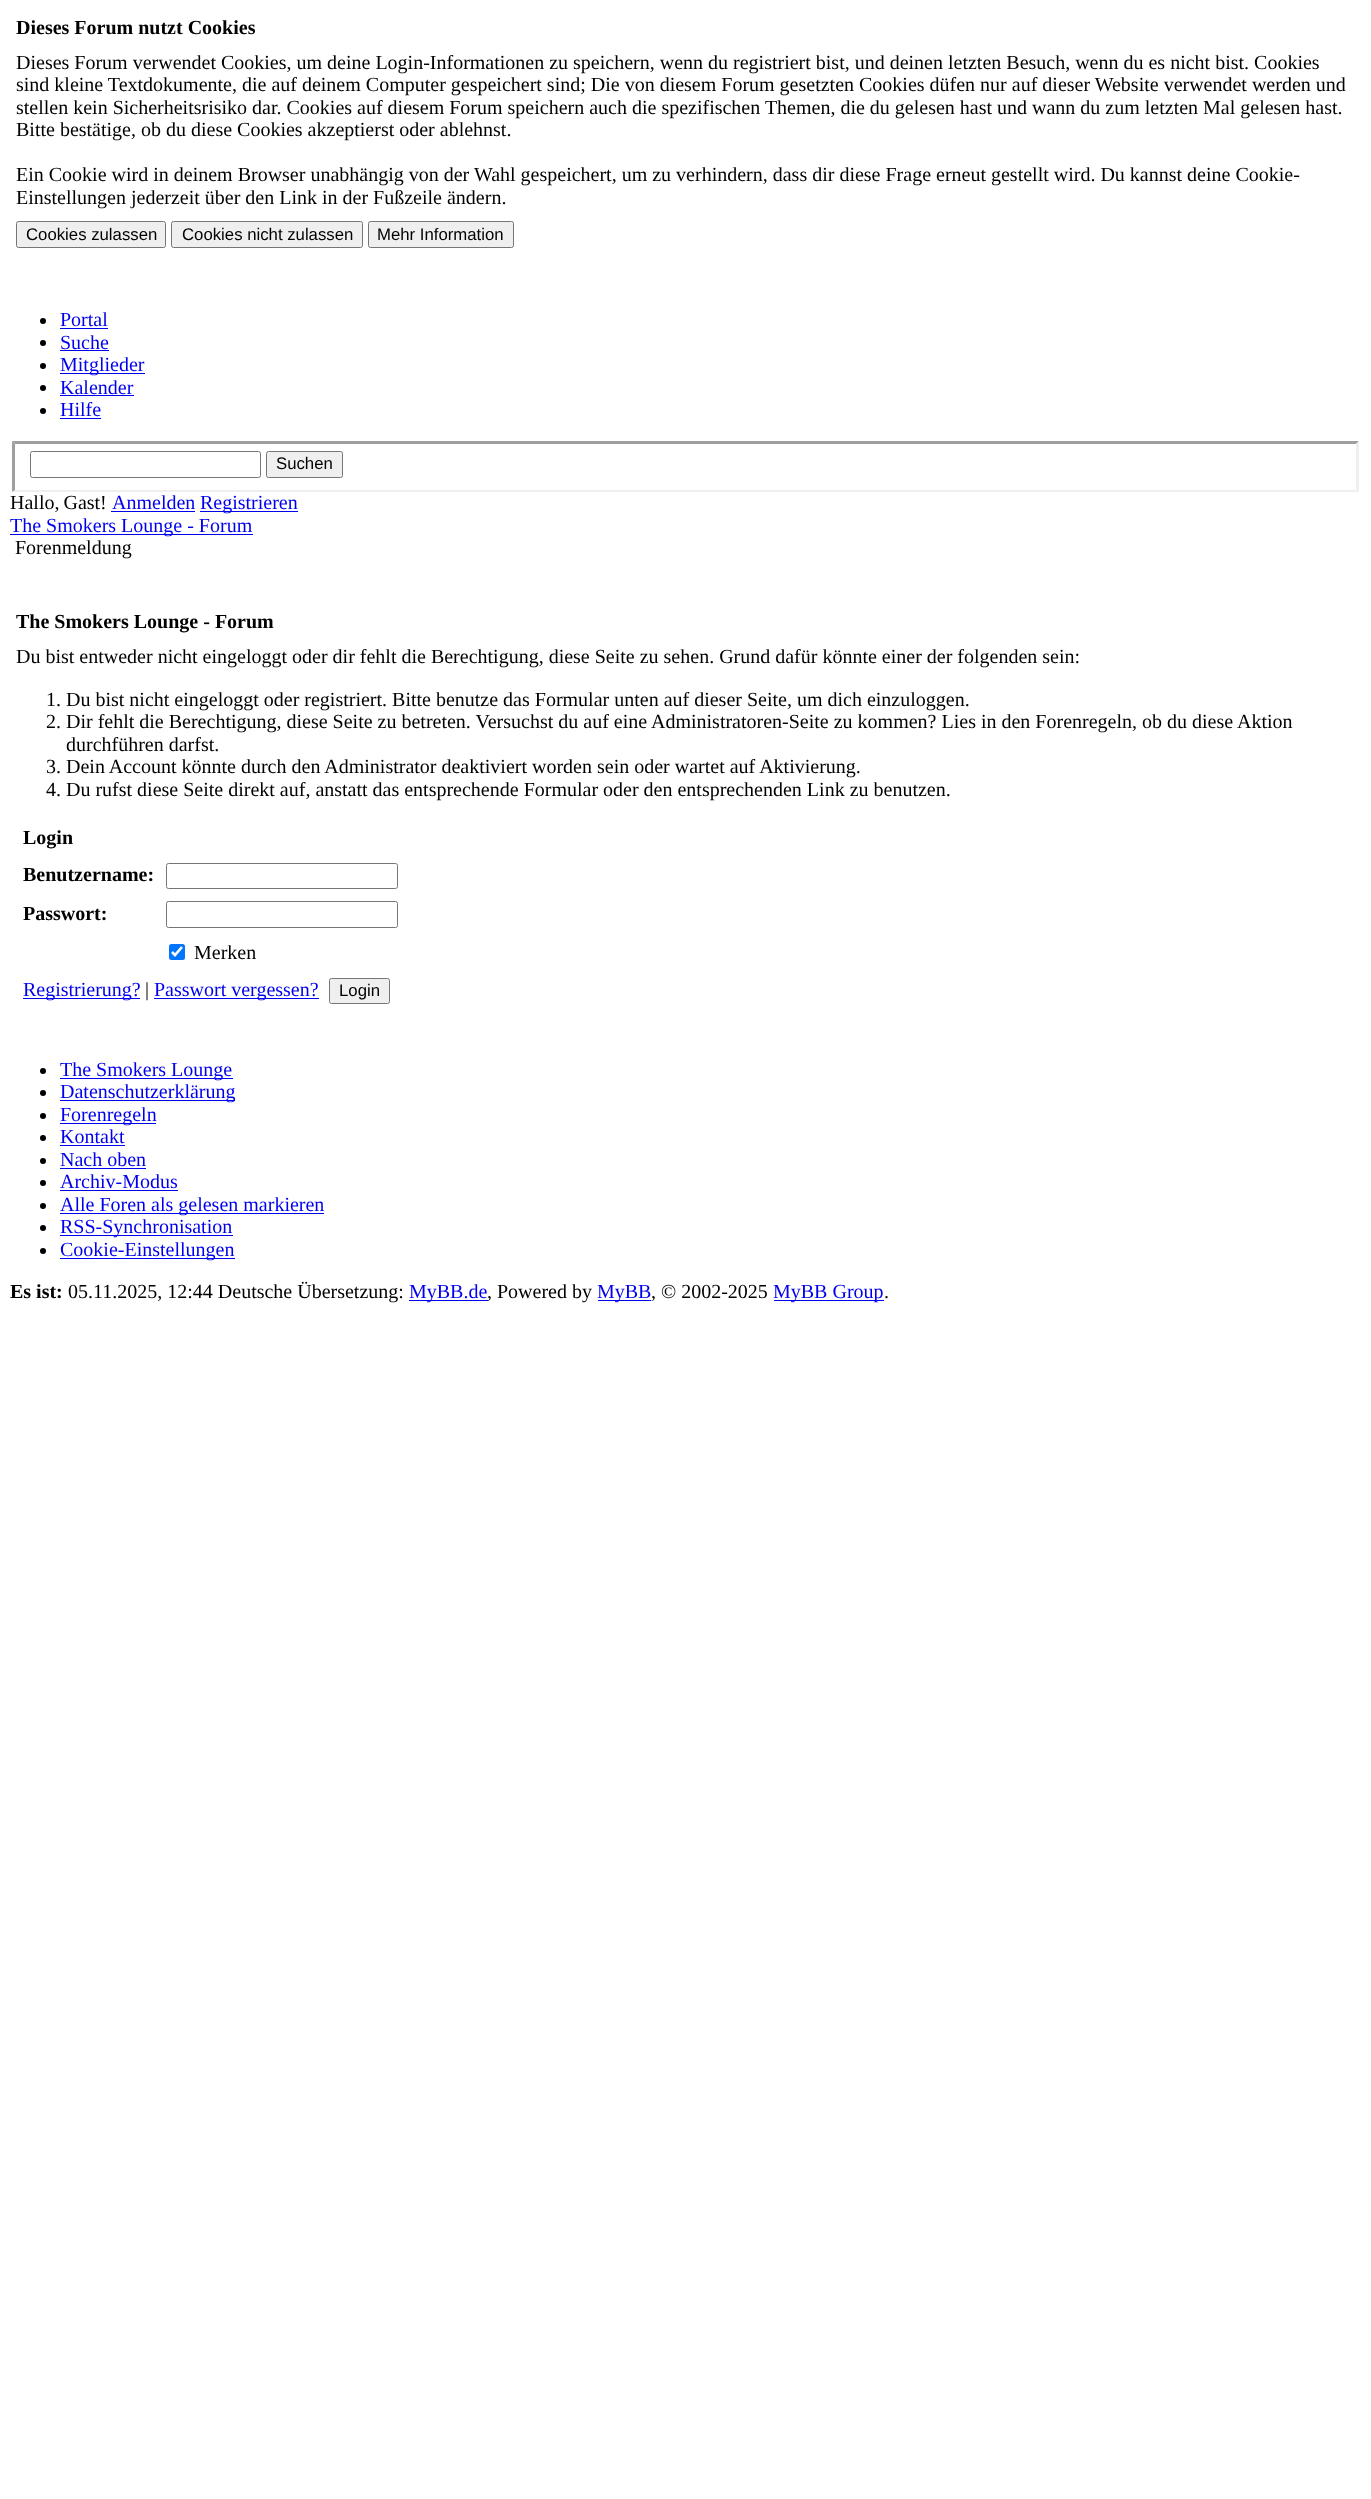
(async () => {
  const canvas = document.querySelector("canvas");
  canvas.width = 1371;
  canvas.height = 2499;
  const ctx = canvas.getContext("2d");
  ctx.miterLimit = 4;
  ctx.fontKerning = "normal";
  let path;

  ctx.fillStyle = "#ffffff";
  ctx.fillRect(0, 0, 1371, 2499);
  ctx.fillStyle = "#efefef";
  ctx.beginPath();
  ctx.roundRect(16.5, 221.5, 149, 26, 2);
  ctx.fill();
  ctx.strokeStyle = "#767676";
  ctx.stroke();
  ctx.beginPath();
  ctx.roundRect(171.5, 221.5, 191, 26, 2);
  ctx.fill();
  ctx.stroke();
  ctx.beginPath();
  ctx.roundRect(368.5, 221.5, 145, 26, 2);
  ctx.fill();
  ctx.stroke();
  ctx.fillStyle = "#000000";
  ctx.beginPath();
  ctx.arc(43, 321, 3, 0, Math.PI * 2);
  ctx.fill();
  ctx.fillStyle = "#0000ee";
  ctx.fillRect(60, 328, 48, 1);
  ctx.fillStyle = "#000000";
  ctx.beginPath();
  ctx.arc(43, 343, 3, 0, Math.PI * 2);
  ctx.fill();
  ctx.fillStyle = "#0000ee";
  ctx.fillRect(60, 350, 49, 1);
  ctx.fillStyle = "#000000";
  ctx.beginPath();
  ctx.arc(43, 366, 3, 0, Math.PI * 2);
  ctx.fill();
  ctx.fillStyle = "#0000ee";
  ctx.fillRect(60, 373, 85, 1);
  ctx.fillStyle = "#000000";
  ctx.beginPath();
  ctx.arc(43, 388, 3, 0, Math.PI * 2);
  ctx.fill();
  ctx.fillStyle = "#0000ee";
  ctx.fillRect(60, 395, 74, 1);
  ctx.fillStyle = "#000000";
  ctx.beginPath();
  ctx.arc(43, 411, 3, 0, Math.PI * 2);
  ctx.fill();
  ctx.fillStyle = "#0000ee";
  ctx.fillRect(60, 418, 41, 1);
  ctx.fillStyle = "#9f9f9f";
  path = new Path2D("M12 441H1359L1356 444H15Z");
  ctx.fill(path);
  ctx.fillStyle = "#efefef";
  path = new Path2D("M1359 441V492L1356 490V444Z");
  ctx.fill(path);
  path = new Path2D("M1359 492H12L15 490H1356Z");
  ctx.fill(path);
  ctx.fillStyle = "#9f9f9f";
  path = new Path2D("M12 492V441L15 444V490Z");
  ctx.fill(path);
  ctx.beginPath();
  ctx.roundRect(30.5, 451.5, 230, 26, 2);
  ctx.stroke();
  ctx.fillStyle = "#efefef";
  ctx.beginPath();
  ctx.roundRect(266.5, 451.5, 76, 26, 2);
  ctx.fill();
  ctx.stroke();
  for (const [x, y, w, h, color] of [
    [111, 511, 84, 1, "#0000ee"],
    [200, 511, 98, 1, "#0000ee"],
    [10, 534, 243, 1, "#0000ee"],
  ]) {
    ctx.fillStyle = color;
    ctx.fillRect(x, y, w, h);
  }
  ctx.beginPath();
  ctx.roundRect(166.5, 863.5, 231, 25, 2);
  ctx.stroke();
  ctx.beginPath();
  ctx.roundRect(166.5, 901.5, 231, 26, 2);
  ctx.stroke();
  ctx.fillStyle = "#0075ff";
  ctx.beginPath();
  ctx.roundRect(169, 944, 16, 16, 2.5);
  ctx.fill();
  path = new Path2D("M172 952L175 955L182 947");
  ctx.strokeStyle = "#ffffff";
  ctx.lineWidth = 2.6;
  ctx.stroke(path);
  ctx.fillStyle = "#0000ee";
  ctx.fillRect(23, 998, 117, 1);
  ctx.fillRect(154, 998, 165, 1);
  ctx.fillStyle = "#efefef";
  ctx.beginPath();
  ctx.roundRect(329.5, 978.5, 60, 25, 2);
  ctx.fill();
  ctx.strokeStyle = "#767676";
  ctx.lineWidth = 1;
  ctx.stroke();
  ctx.fillStyle = "#000000";
  ctx.beginPath();
  ctx.arc(43, 1071, 3, 0, Math.PI * 2);
  ctx.fill();
  ctx.fillStyle = "#0000ee";
  ctx.fillRect(60, 1078, 173, 1);
  ctx.fillStyle = "#000000";
  ctx.beginPath();
  ctx.arc(43, 1093, 3, 0, Math.PI * 2);
  ctx.fill();
  ctx.fillStyle = "#0000ee";
  ctx.fillRect(60, 1100, 175, 1);
  ctx.fillStyle = "#000000";
  ctx.beginPath();
  ctx.arc(43, 1116, 3, 0, Math.PI * 2);
  ctx.fill();
  ctx.fillStyle = "#0000ee";
  ctx.fillRect(60, 1123, 96, 1);
  ctx.fillStyle = "#000000";
  ctx.beginPath();
  ctx.arc(43, 1138, 3, 0, Math.PI * 2);
  ctx.fill();
  ctx.fillStyle = "#0000ee";
  ctx.fillRect(60, 1145, 65, 1);
  ctx.fillStyle = "#000000";
  ctx.beginPath();
  ctx.arc(43, 1161, 3, 0, Math.PI * 2);
  ctx.fill();
  ctx.fillStyle = "#0000ee";
  ctx.fillRect(60, 1168, 86, 1);
  ctx.fillStyle = "#000000";
  ctx.beginPath();
  ctx.arc(43, 1183, 3, 0, Math.PI * 2);
  ctx.fill();
  ctx.fillStyle = "#0000ee";
  ctx.fillRect(60, 1190, 118, 1);
  ctx.fillStyle = "#000000";
  ctx.beginPath();
  ctx.arc(43, 1206, 3, 0, Math.PI * 2);
  ctx.fill();
  ctx.fillStyle = "#0000ee";
  ctx.fillRect(60, 1213, 264, 1);
  ctx.fillStyle = "#000000";
  ctx.beginPath();
  ctx.arc(43, 1228, 3, 0, Math.PI * 2);
  ctx.fill();
  ctx.fillStyle = "#0000ee";
  ctx.fillRect(60, 1235, 173, 1);
  ctx.fillStyle = "#000000";
  ctx.beginPath();
  ctx.arc(43, 1251, 3, 0, Math.PI * 2);
  ctx.fill();
  for (const [x, y, w, h, color] of [
    [60, 1258, 175, 1, "#0000ee"],
    [409, 1300, 79, 1, "#0000ee"],
    [598, 1300, 53, 1, "#0000ee"],
    [774, 1300, 110, 1, "#0000ee"],
  ]) {
    ctx.fillStyle = color;
    ctx.fillRect(x, y, w, h);
  }
  ctx.font = "bold 20px Liberation Serif";
  ctx.fillStyle = "#000000";
  ctx.fillText("Dieses Forum nutzt Cookies", 16, 34);
  ctx.font = "20px Liberation Serif";
  for (const [text, x, y] of [
    ["Dieses Forum verwendet Cookies, um deine Login-Informationen zu speichern, wenn du registriert bist, und deinen letzten Besuch, wenn du es nicht bist. Cookies", 16, 69],
    ["sind kleine Textdokumente, die auf deinem Computer gespeichert sind; Die von diesem Forum gesetzten Cookies düfen nur auf dieser Website verwendet werden und", 16, 91],
    ["stellen kein Sicherheitsrisiko dar. Cookies auf diesem Forum speichern auch die spezifischen Themen, die du gelesen hast und wann du zum letzten Mal gelesen hast.", 16, 114],
    ["Bitte bestätige, ob du diese Cookies akzeptierst oder ablehnst.", 16, 136],
    ["Ein Cookie wird in deinem Browser unabhängig von der Wahl gespeichert, um zu verhindern, dass dir diese Frage erneut gestellt wird. Du kannst deine Cookie-", 16, 181],
    ["Einstellungen jederzeit über den Link in der Fußzeile ändern.", 16, 204],
  ]) {
    ctx.fillText(text, x, y);
  }
  ctx.font = "16.75px Liberation Sans";
  for (const [text, x, y] of [
    ["Cookies zulassen", 26, 240],
    ["Cookies nicht zulassen", 182, 240],
    ["Mehr Information", 377, 240],
  ]) {
    ctx.fillText(text, x, y);
  }
  ctx.font = "20px Liberation Serif";
  ctx.fillStyle = "#0000ee";
  for (const [text, x, y] of [
    ["Portal", 60, 326],
    ["Suche", 60, 349],
    ["Mitglieder", 60, 371],
    ["Kalender", 60, 394],
    ["Hilfe", 60, 416],
  ]) {
    ctx.fillText(text, x, y);
  }
  ctx.font = "16.75px Liberation Sans";
  ctx.fillStyle = "#000000";
  ctx.fillText("Suchen", 276, 469);
  ctx.wordSpacing = "-1px";
  ctx.font = "20px Liberation Serif";
  ctx.fillText("Hallo, Gast!", 10, 509);
  ctx.wordSpacing = "0px";
  ctx.fillStyle = "#0000ee";
  for (const [text, x, y] of [
    ["Anmelden", 112, 509],
    ["Registrieren", 200, 509],
    ["The Smokers Lounge - Forum", 10, 532],
  ]) {
    ctx.fillText(text, x, y);
  }
  ctx.fillStyle = "#000000";
  ctx.fillText("Forenmeldung", 15, 554);
  ctx.font = "bold 20px Liberation Serif";
  ctx.fillText("The Smokers Lounge - Forum", 16, 628);
  ctx.font = "20px Liberation Serif";
  for (const [text, x, y] of [
    ["Du bist entweder nicht eingeloggt oder dir fehlt die Berechtigung, diese Seite zu sehen. Grund dafür könnte einer der folgenden sein:", 16, 663],
    ["1. Du bist nicht eingeloggt oder registriert. Bitte benutze das Formular unten auf dieser Seite, um dich einzuloggen.", 46, 706],
    ["2. Dir fehlt die Berechtigung, diese Seite zu betreten. Versuchst du auf eine Administratoren-Seite zu kommen? Lies in den Forenregeln, ob du diese Aktion", 46, 728],
    ["durchführen darfst.", 66, 751],
    ["3. Dein Account könnte durch den Administrator deaktiviert worden sein oder wartet auf Aktivierung.", 46, 773],
    ["4. Du rufst diese Seite direkt auf, anstatt das entsprechende Formular oder den entsprechenden Link zu benutzen.", 46, 796],
  ]) {
    ctx.fillText(text, x, y);
  }
  ctx.font = "bold 20px Liberation Serif";
  for (const [text, x, y] of [
    ["Login", 23, 844],
    ["Benutzername:", 23, 881],
    ["Passwort:", 23, 920],
  ]) {
    ctx.fillText(text, x, y);
  }
  ctx.font = "20px Liberation Serif";
  ctx.fillText("Merken", 194, 959);
  ctx.fillStyle = "#0000ee";
  ctx.fillText("Registrierung?", 23, 996);
  ctx.fillStyle = "#000000";
  ctx.fillText("|", 145, 996);
  ctx.fillStyle = "#0000ee";
  ctx.fillText("Passwort vergessen?", 154, 996);
  ctx.font = "16.75px Liberation Sans";
  ctx.fillStyle = "#000000";
  ctx.fillText("Login", 339, 996);
  ctx.font = "20px Liberation Serif";
  ctx.fillStyle = "#0000ee";
  for (const [text, x, y] of [
    ["The Smokers Lounge", 60, 1076],
    ["Datenschutzerklärung", 60, 1098],
    ["Forenregeln", 60, 1121],
    ["Kontakt", 60, 1143],
    ["Nach oben", 60, 1166],
    ["Archiv-Modus", 60, 1188],
    ["Alle Foren als gelesen markieren", 60, 1211],
    ["RSS-Synchronisation", 60, 1233],
    ["Cookie-Einstellungen", 60, 1256],
  ]) {
    ctx.fillText(text, x, y);
  }
  ctx.font = "bold 20px Liberation Serif";
  ctx.fillStyle = "#000000";
  ctx.fillText("Es ist:", 10, 1298);
  ctx.font = "20px Liberation Serif";
  ctx.fillText("05.11.2025, 12:44 Deutsche Übersetzung:", 68, 1298);
  ctx.fillStyle = "#0000ee";
  ctx.fillText("MyBB.de", 409, 1298);
  ctx.fillStyle = "#000000";
  ctx.fillText(", Powered by", 487, 1298);
  ctx.fillStyle = "#0000ee";
  ctx.fillText("MyBB", 597, 1298);
  ctx.fillStyle = "#000000";
  ctx.fillText(", © 2002-2025", 651, 1298);
  ctx.fillStyle = "#0000ee";
  ctx.fillText("MyBB Group", 773, 1298);
  ctx.fillStyle = "#000000";
  ctx.fillText(".", 884, 1298);
})();
